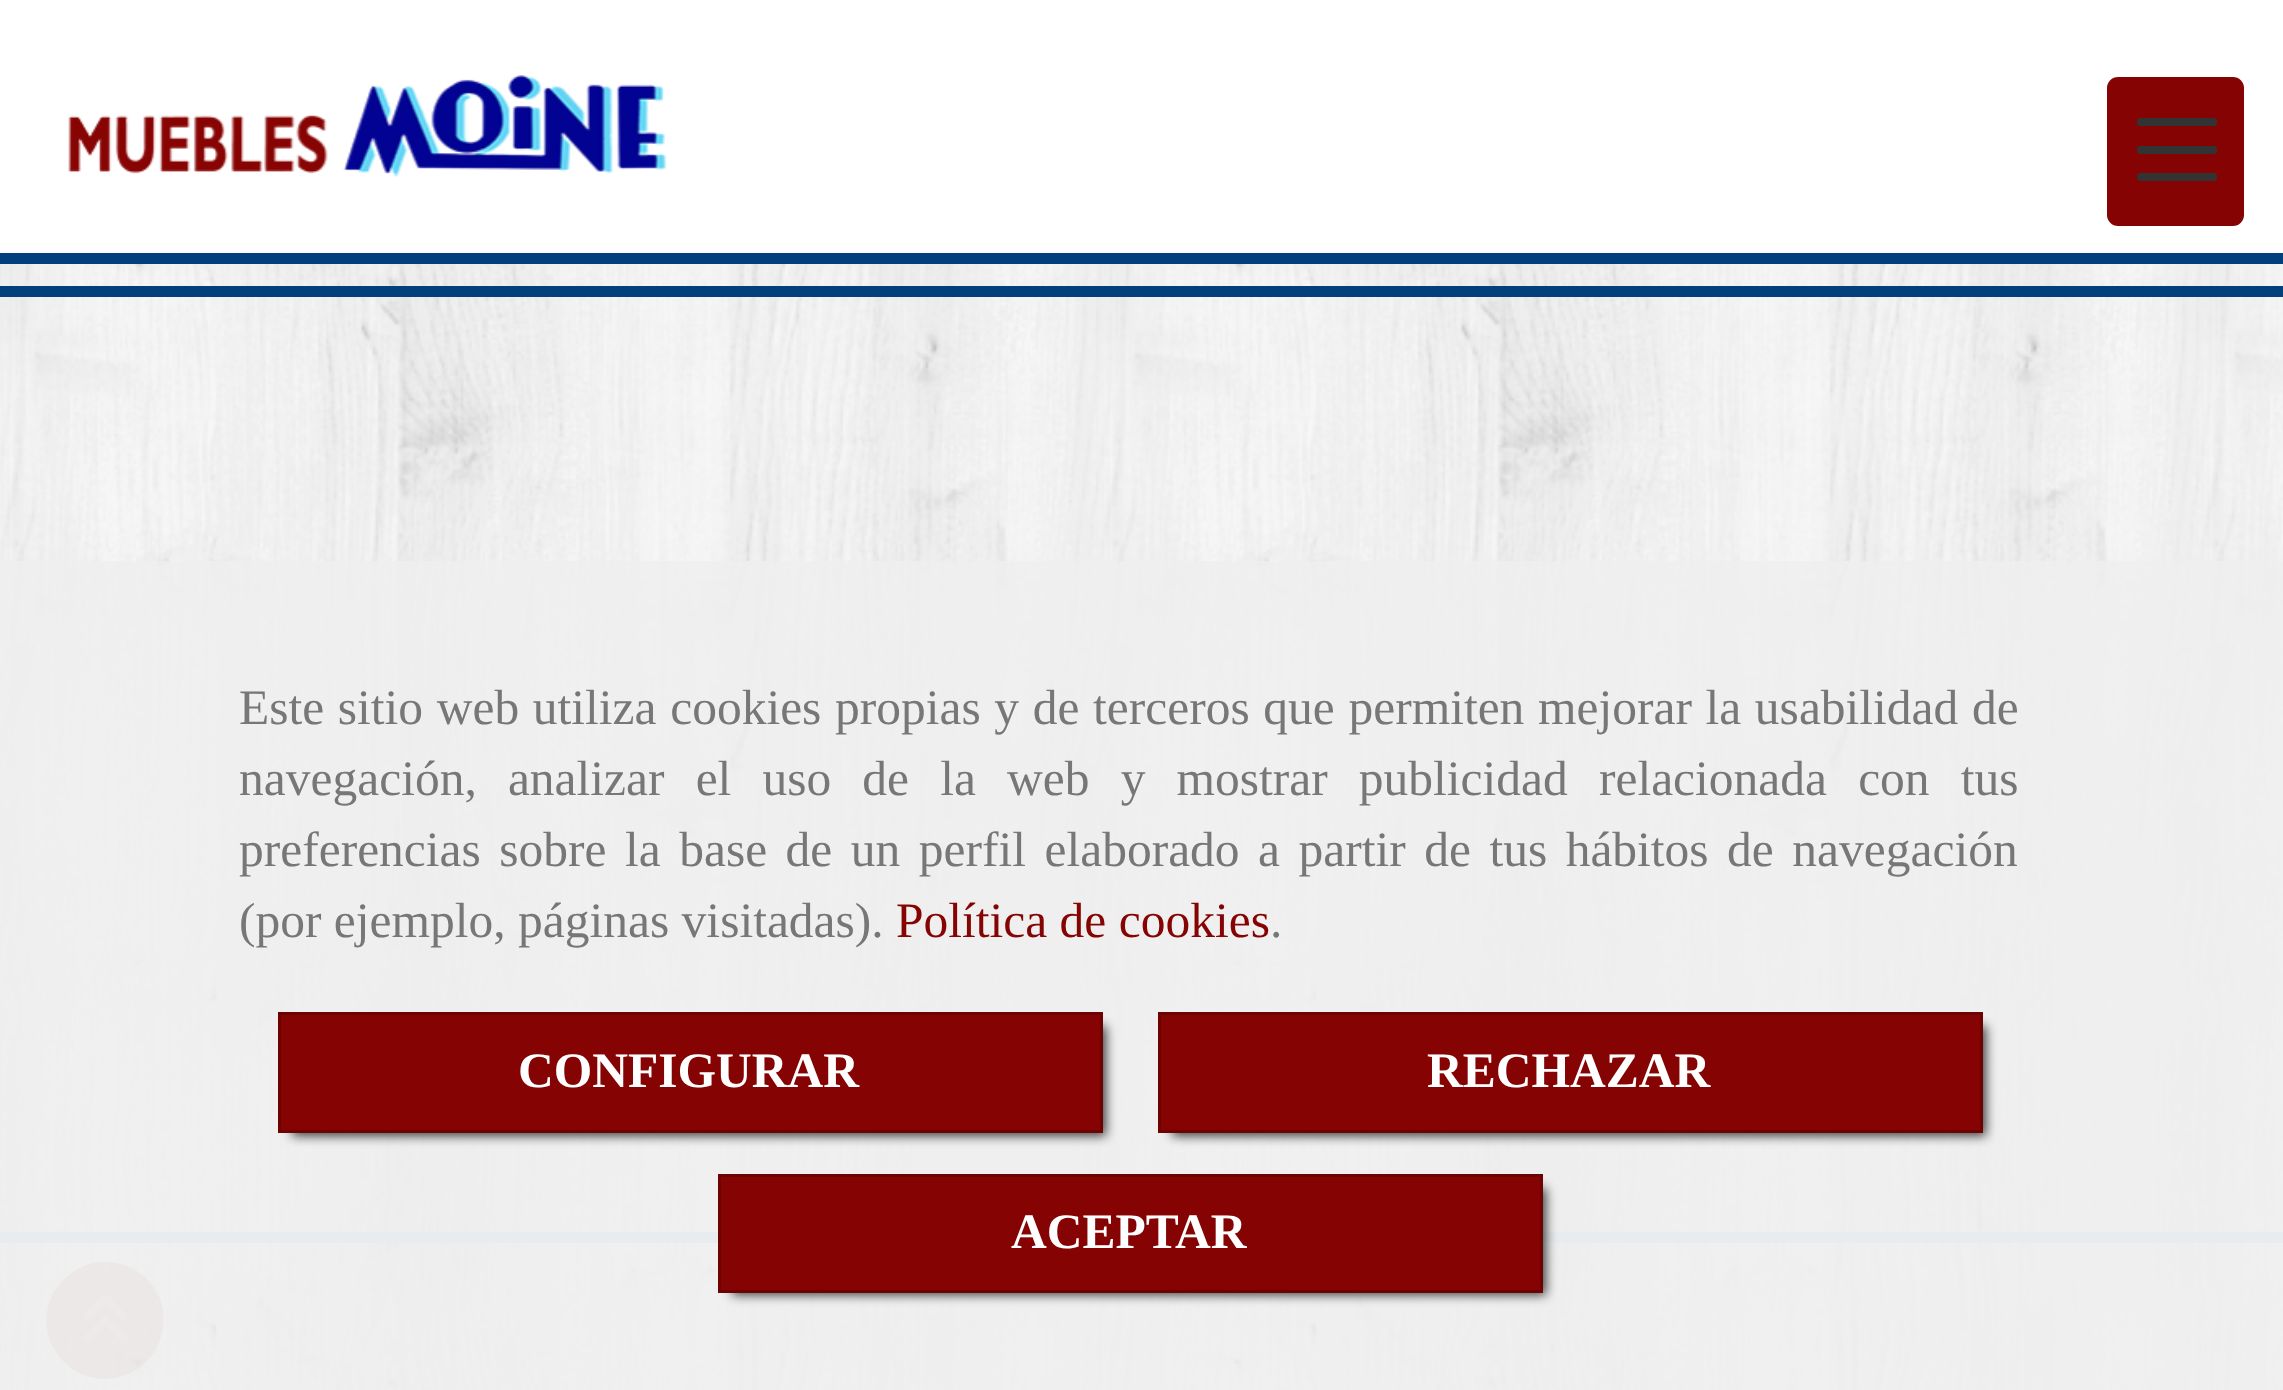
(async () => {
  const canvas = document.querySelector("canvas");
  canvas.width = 2283;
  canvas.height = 1390;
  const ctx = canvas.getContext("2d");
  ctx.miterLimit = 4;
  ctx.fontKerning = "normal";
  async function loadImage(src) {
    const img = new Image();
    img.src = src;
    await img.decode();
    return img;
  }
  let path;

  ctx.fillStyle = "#ffffff";
  ctx.fillRect(0, 0, 2283, 1390);
  ctx.drawImage(await loadImage("img/1.png"), 0, 264, 2283, 1126);
  ctx.fillStyle = "#00417d";
  ctx.fillRect(0, 253, 2283, 11);
  ctx.drawImage(await loadImage("img/2.png"), 68, 75, 599, 102);
  ctx.fillStyle = "#850403";
  ctx.beginPath();
  ctx.roundRect(2107, 77, 137, 149, 11);
  ctx.fill();
  ctx.fillStyle = "#333333";
  ctx.beginPath();
  ctx.roundRect(2137, 146, 80, 8, 3);
  ctx.fill();
  ctx.beginPath();
  ctx.roundRect(2137, 118, 80, 8, 3);
  ctx.fill();
  ctx.beginPath();
  ctx.roundRect(2137, 173, 80, 8, 3);
  ctx.fill();
  ctx.fillStyle = "#00417d";
  ctx.fillRect(0, 286, 2283, 11);
  ctx.fillStyle = "#c8dfea";
  ctx.fillRect(0, 1232, 2283, 11);
  ctx.fillStyle = "rgba(133, 4, 3, 0.2)";
  path = new Path2D("M105 1379C161 1378 185 1308 141 1274C131 1266 118 1262 105 1262C92 1262 80 1266 70 1274C25 1308 49 1378 105 1379Z");
  ctx.fill(path);
  ctx.drawImage(await loadImage("img/3.png"), 83, 1294, 44, 48);
  ctx.fillStyle = "rgba(238, 238, 238, 0.85)";
  ctx.fillRect(0, 561, 2283, 829);
  ctx.fillStyle = "rgba(0, 0, 0, 0.75)";
  ctx.filter = "blur(5.5px)";
  ctx.beginPath();
  ctx.rect(292, 1026, 814, 110);
  ctx.fill();
  ctx.filter = "none";
  ctx.fillStyle = "#850403";
  ctx.beginPath();
  ctx.rect(279.5, 1013.5, 822, 118);
  ctx.fill();
  ctx.strokeStyle = "#6c0302";
  ctx.lineWidth = 3;
  ctx.stroke();
  ctx.fillStyle = "rgba(0, 0, 0, 0.75)";
  ctx.filter = "blur(5.5px)";
  ctx.beginPath();
  ctx.rect(1172, 1026, 814, 110);
  ctx.fill();
  ctx.filter = "none";
  ctx.fillStyle = "#850403";
  ctx.beginPath();
  ctx.rect(1159.5, 1013.5, 822, 118);
  ctx.fill();
  ctx.stroke();
  ctx.fillStyle = "rgba(0, 0, 0, 0.75)";
  ctx.filter = "blur(5.5px)";
  ctx.beginPath();
  ctx.rect(732, 1188, 814, 107);
  ctx.fill();
  ctx.filter = "none";
  ctx.fillStyle = "#850403";
  ctx.beginPath();
  ctx.rect(719.5, 1175.5, 822, 116);
  ctx.fill();
  ctx.stroke();
  ctx.wordSpacing = "1.25px";
  ctx.font = "49.5px Liberation Serif";
  ctx.fillStyle = "#777777";
  ctx.fillText("Este sitio web utiliza cookies propias y de terceros que permiten mejorar la usabilidad de", 239, 724);
  ctx.wordSpacing = "18.75px";
  ctx.fillText("navegación, analizar el uso de la web y mostrar publicidad relacionada con tus", 239, 795);
  ctx.wordSpacing = "6.1px";
  ctx.fillText("preferencias sobre la base de un perfil elaborado a partir de tus hábitos de navegación", 239, 866);
  ctx.wordSpacing = "0px";
  ctx.fillText("(por ejemplo, páginas visitadas).", 239, 937);
  ctx.fillStyle = "#850403";
  ctx.fillText("Política de cookies", 896, 937);
  ctx.fillStyle = "#777777";
  ctx.fillText(".", 1270, 937);
  ctx.font = "bold 49.5px Liberation Serif";
  ctx.fillStyle = "#ffffff";
  for (const [text, x, y] of [
    ["CONFIGURAR", 518, 1087],
    ["RECHAZAR", 1427, 1087],
    ["ACEPTAR", 1011, 1248],
  ]) {
    ctx.fillText(text, x, y);
  }
})();
